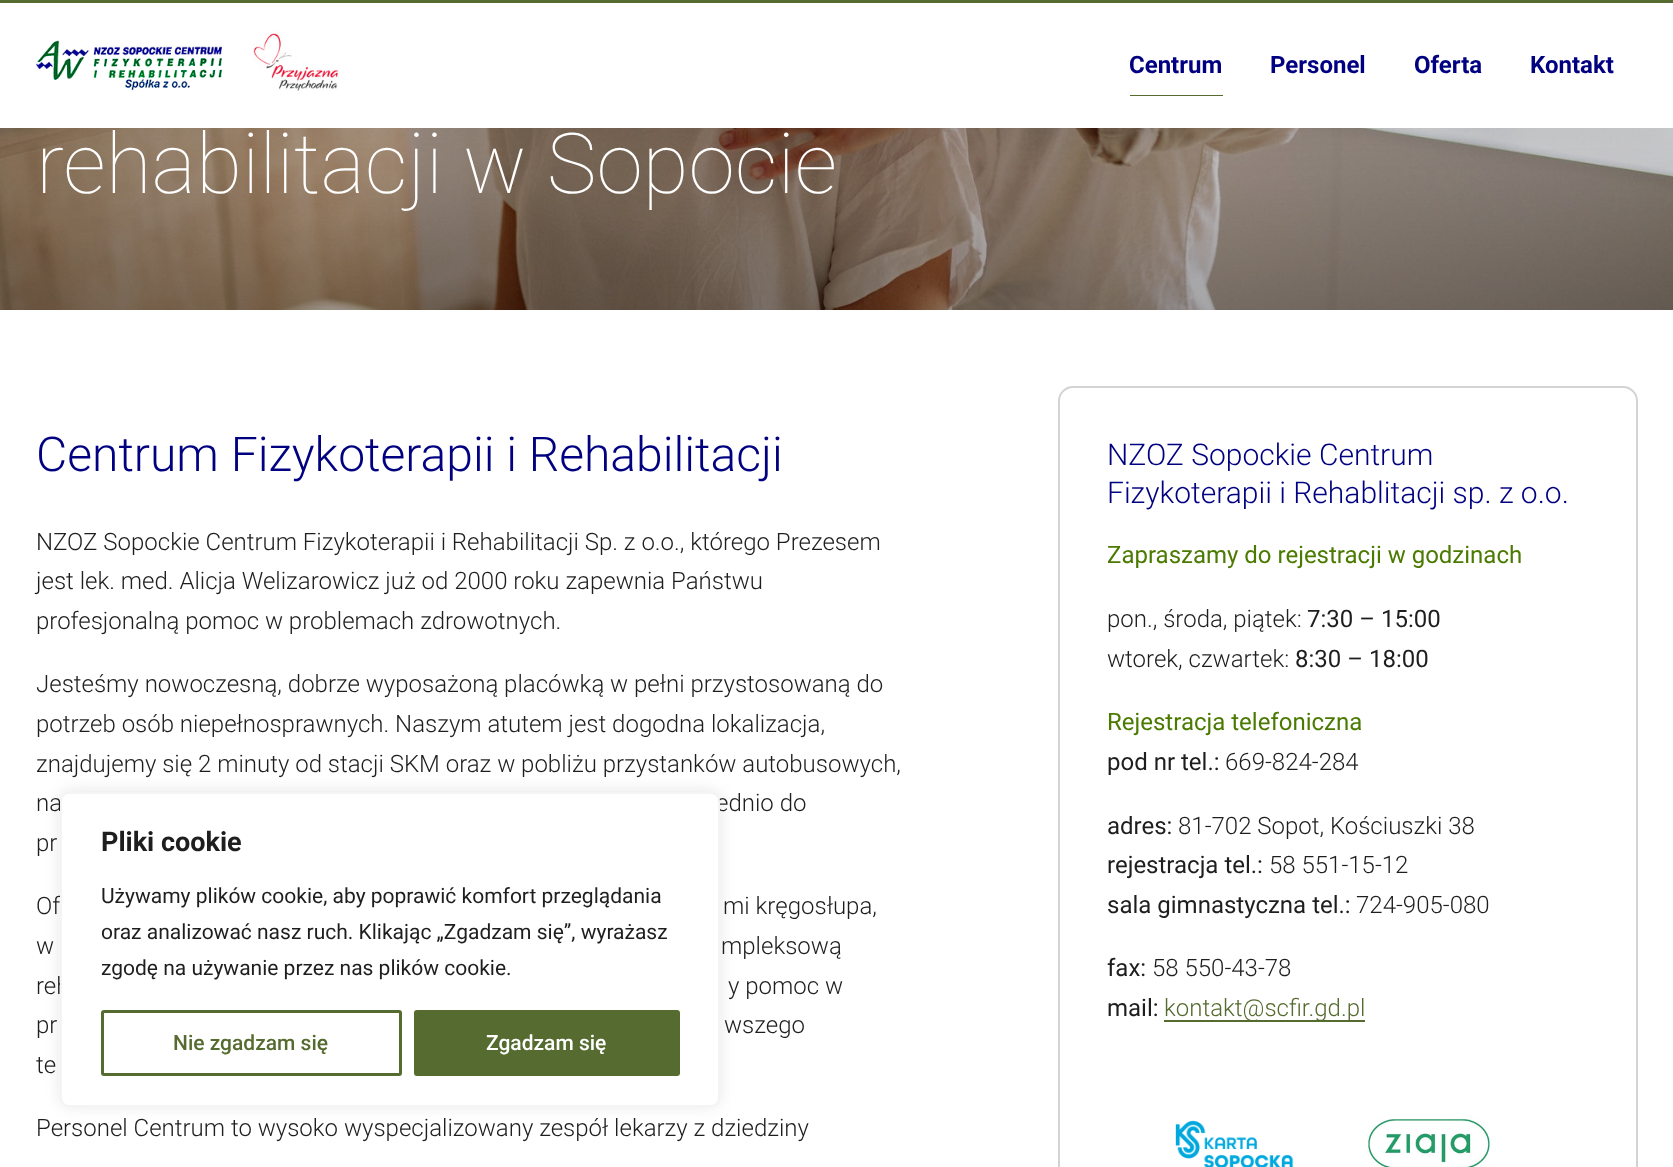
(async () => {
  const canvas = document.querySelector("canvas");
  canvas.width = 1673;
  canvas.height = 1167;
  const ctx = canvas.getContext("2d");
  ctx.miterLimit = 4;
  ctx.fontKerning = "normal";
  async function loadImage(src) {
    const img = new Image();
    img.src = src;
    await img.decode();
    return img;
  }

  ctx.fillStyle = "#ffffff";
  ctx.fillRect(0, 0, 1673, 1167);
  ctx.drawImage(await loadImage("img/3.png"), 0, 128, 1673, 182);
  ctx.fillStyle = "rgba(0, 0, 0, 0.1)";
  ctx.filter = "blur(22.5px)";
  ctx.beginPath();
  ctx.rect(0, 0, 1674, 128);
  ctx.fill();
  ctx.filter = "none";
  ctx.fillStyle = "#ffffff";
  ctx.fillRect(0, 3, 1673, 125);
  ctx.fillStyle = "#556b2f";
  ctx.fillRect(0, 0, 1673, 3);
  ctx.drawImage(await loadImage("img/1.png"), 36, 40, 186, 50);
  ctx.drawImage(await loadImage("img/2.png"), 253, 31, 87, 60);
  ctx.fillRect(1130, 95, 93, 1);
  ctx.beginPath();
  ctx.roundRect(1059, 387, 578, 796, 14);
  ctx.strokeStyle = "#d3d3d3";
  ctx.lineWidth = 2;
  ctx.stroke();
  ctx.fillRect(1164, 1020, 201, 2);
  ctx.drawImage(await loadImage("img/4.png"), 1175, 1120, 119, 47);
  ctx.drawImage(await loadImage("img/5.png"), 1368, 1119, 124, 48);
  ctx.fillStyle = "rgba(172, 171, 171, 0.3)";
  ctx.filter = "blur(7.5px)";
  ctx.beginPath();
  ctx.roundRect(60, 791, 660, 315, 9);
  ctx.fill();
  ctx.filter = "none";
  ctx.font = "bold 24px Roboto";
  ctx.fillStyle = "#000080";
  for (const [text, x, y] of [
    ["Centrum", 1129, 73],
    ["Personel", 1270, 73],
    ["Oferta", 1414, 73],
    ["Kontakt", 1530, 73],
  ]) {
    ctx.fillText(text, x, y);
  }
  ctx.font = "100 84px Roboto";
  ctx.fillStyle = "#ffffff";
  ctx.fillText("rehabilitacji w Sopocie", 36, 193);
  ctx.font = "300 48px Roboto";
  ctx.fillStyle = "#000080";
  ctx.fillText("Centrum Fizykoterapii i Rehabilitacji", 36, 471);
  ctx.font = "300 24px Roboto";
  ctx.fillStyle = "#1e1e1e";
  for (const [text, x, y] of [
    ["NZOZ Sopockie Centrum Fizykoterapii i Rehabilitacji Sp. z o.o., którego Prezesem", 36, 550],
    ["jest lek. med. Alicja Welizarowicz już od 2000 roku zapewnia Państwu", 36, 589],
    ["profesjonalną pomoc w problemach zdrowotnych.", 36, 629],
    ["Jesteśmy nowoczesną, dobrze wyposażoną placówką w pełni przystosowaną do", 36, 692],
    ["potrzeb osób niepełnosprawnych. Naszym atutem jest dogodna lokalizacja,", 36, 732],
    ["znajdujemy się 2 minuty od stacji SKM oraz w pobliżu przystanków autobusowych,", 36, 772],
    ["na", 36, 811],
    ["ednio do", 716, 811],
    ["pr", 36, 851],
    ["Of", 36, 914],
    ["mi kręgosłupa,", 723, 914],
    ["w", 36, 954],
    ["mpleksową", 721, 954],
    ["reh", 36, 994],
    ["y pomoc w", 728, 994],
    ["pr", 36, 1033],
    ["wszego", 724, 1033],
    ["te", 36, 1073],
    ["Personel Centrum to wysoko wyspecjalizowany zespół lekarzy z dziedziny", 36, 1136],
  ]) {
    ctx.fillText(text, x, y);
  }
  ctx.font = "300 30px Roboto";
  ctx.fillStyle = "#000080";
  ctx.fillText("NZOZ Sopockie Centrum", 1107, 465);
  ctx.fillText("Fizykoterapii i Rehablitacji sp. z o.o.", 1107, 503);
  ctx.font = "24px Roboto";
  ctx.fillStyle = "#4b7a00";
  ctx.fillText("Zapraszamy do rejestracji w godzinach", 1107, 563);
  ctx.font = "300 24px Roboto";
  ctx.fillStyle = "#1e1e1e";
  ctx.fillText("pon., środa, piątek:", 1107, 627);
  ctx.font = "24px Roboto";
  ctx.fillText("7:30 – 15:00", 1307, 627);
  ctx.font = "300 24px Roboto";
  ctx.fillText("wtorek, czwartek:", 1107, 667);
  ctx.font = "24px Roboto";
  ctx.fillText("8:30 – 18:00", 1295, 667);
  ctx.fillStyle = "#4b7a00";
  ctx.fillText("Rejestracja telefoniczna", 1107, 730);
  ctx.fillStyle = "#1e1e1e";
  ctx.fillText("pod nr tel.:", 1107, 770);
  ctx.font = "300 24px Roboto";
  ctx.fillText("669-824-284", 1225, 770);
  ctx.font = "24px Roboto";
  ctx.fillText("adres:", 1107, 834);
  ctx.font = "300 24px Roboto";
  ctx.fillText("81-702 Sopot, Kościuszki 38", 1178, 834);
  ctx.font = "24px Roboto";
  ctx.fillText("rejestracja tel.:", 1107, 873);
  ctx.font = "300 24px Roboto";
  ctx.fillText("58 551-15-12", 1269, 873);
  ctx.font = "24px Roboto";
  ctx.fillText("sala gimnastyczna tel.:", 1107, 913);
  ctx.font = "300 24px Roboto";
  ctx.fillText("724-905-080", 1356, 913);
  ctx.font = "24px Roboto";
  ctx.fillText("fax:", 1107, 976);
  ctx.font = "300 24px Roboto";
  ctx.fillText("58 550-43-78", 1152, 976);
  ctx.font = "24px Roboto";
  ctx.fillText("mail:", 1107, 1016);
  ctx.font = "300 24px Roboto";
  ctx.fillStyle = "#556b2f";
  ctx.fillText("kontakt@scfir.gd.pl", 1164, 1016);
  ctx.fillStyle = "#ffffff";
  ctx.beginPath();
  ctx.roundRect(61, 793, 658, 313, 8);
  ctx.fill();
  ctx.strokeStyle = "#f4f4f4";
  ctx.stroke();
  ctx.font = "bold 27px Roboto";
  ctx.fillStyle = "#1e1e1e";
  ctx.fillText("Pliki cookie", 101, 851);
  ctx.font = "21px Roboto";
  for (const [text, x, y] of [
    ["Używamy plików cookie, aby poprawić komfort przeglądania", 101, 903],
    ["oraz analizować nasz ruch. Klikając „Zgadzam się”, wyrażasz", 101, 939],
    ["zgodę na używanie przez nas plików cookie.", 101, 975],
  ]) {
    ctx.fillText(text, x, y);
  }
  ctx.beginPath();
  ctx.roundRect(102.5, 1011.5, 298, 63, 1.5);
  ctx.strokeStyle = "#556b2f";
  ctx.lineWidth = 3;
  ctx.stroke();
  ctx.font = "500 21px Roboto";
  ctx.fillStyle = "#556b2f";
  ctx.fillText("Nie zgadzam się", 173, 1050);
  ctx.beginPath();
  ctx.roundRect(415.5, 1011.5, 263, 63, 1.5);
  ctx.fill();
  ctx.stroke();
  ctx.fillStyle = "#ffffff";
  ctx.fillText("Zgadzam się", 486, 1050);
})();
